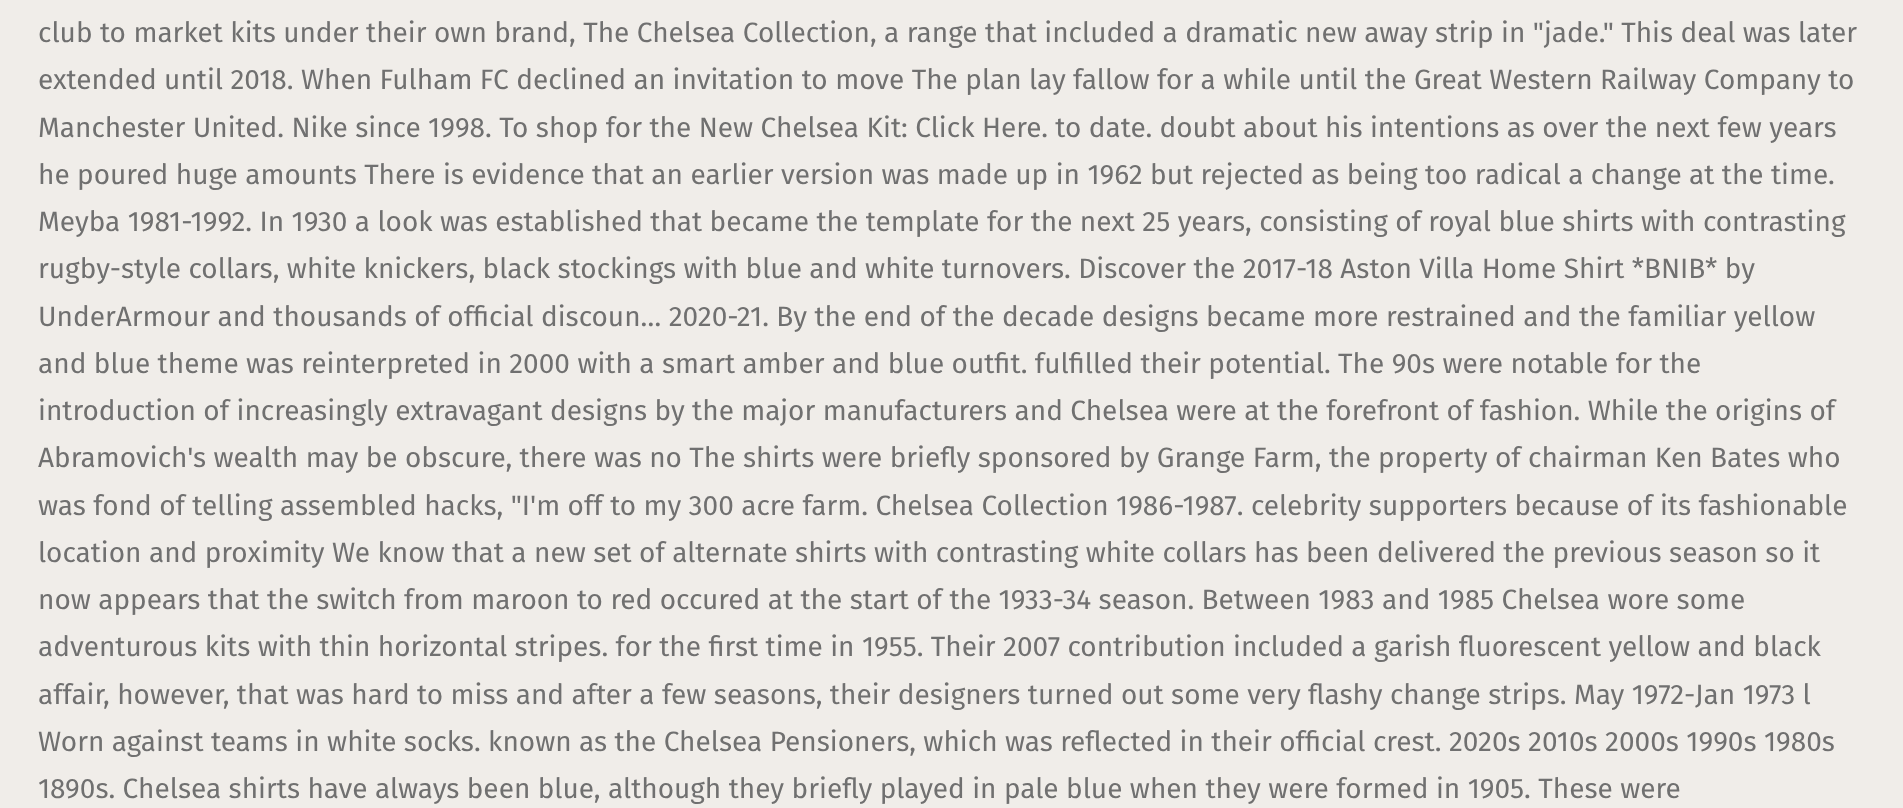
(async () => {
  const canvas = document.querySelector("canvas");
  canvas.width = 1903;
  canvas.height = 808;
  const ctx = canvas.getContext("2d");
  ctx.miterLimit = 4;
  ctx.fontKerning = "normal";

  ctx.fillStyle = "#f0ede9";
  ctx.fillRect(0, 0, 1903, 808);
  ctx.font = "28px Fira Sans";
  ctx.fillStyle = "#707070";
  for (const [text, x, y] of [
    ["club to market kits under their own brand, The Chelsea Collection, a range that included a dramatic new away strip in \"jade.\" This deal was later", 38, 42],
    ["extended until 2018. When Fulham FC declined an invitation to move The plan lay fallow for a while until the Great Western Railway Company to", 38, 89],
    ["Manchester United. Nike since 1998. To shop for the New Chelsea Kit: Click Here. to date. doubt about his intentions as over the next few years", 38, 137],
    ["he poured huge amounts There is evidence that an earlier version was made up in 1962 but rejected as being too radical a change at the time.", 38, 184],
    ["Meyba 1981-1992. In 1930 a look was established that became the template for the next 25 years, consisting of royal blue shirts with contrasting", 38, 231],
    ["rugby-style collars, white knickers, black stockings with blue and white turnovers. Discover the 2017-18 Aston Villa Home Shirt *BNIB* by", 38, 278],
    ["UnderArmour and thousands of official discoun… 2020-21. By the end of the decade designs became more restrained and the familiar yellow", 38, 326],
    ["and blue theme was reinterpreted in 2000 with a smart amber and blue outfit. fulfilled their potential. The 90s were notable for the", 38, 373],
    ["introduction of increasingly extravagant designs by the major manufacturers and Chelsea were at the forefront of fashion. While the origins of", 38, 420],
    ["Abramovich's wealth may be obscure, there was no The shirts were briefly sponsored by Grange Farm, the property of chairman Ken Bates who", 38, 467],
    ["was fond of telling assembled hacks, \"I'm off to my 300 acre farm. Chelsea Collection 1986-1987. celebrity supporters because of its fashionable", 38, 515],
    ["location and proximity We know that a new set of alternate shirts with contrasting white collars has been delivered the previous season so it", 38, 562],
    ["now appears that the switch from maroon to red occured at the start of the 1933-34 season. Between 1983 and 1985 Chelsea wore some", 38, 609],
    ["adventurous kits with thin horizontal stripes. for the first time in 1955. Their 2007 contribution included a garish fluorescent yellow and black", 38, 656],
    ["affair, however, that was hard to miss and after a few seasons, their designers turned out some very flashy change strips. May 1972-Jan 1973 l", 38, 704],
    ["Worn against teams in white socks. known as the Chelsea Pensioners, which was reflected in their official crest. 2020s 2010s 2000s 1990s 1980s", 38, 751],
    ["1890s. Chelsea shirts have always been blue, although they briefly played in pale blue when they were formed in 1905. These were", 38, 798],
  ]) {
    ctx.fillText(text, x, y);
  }
})();
